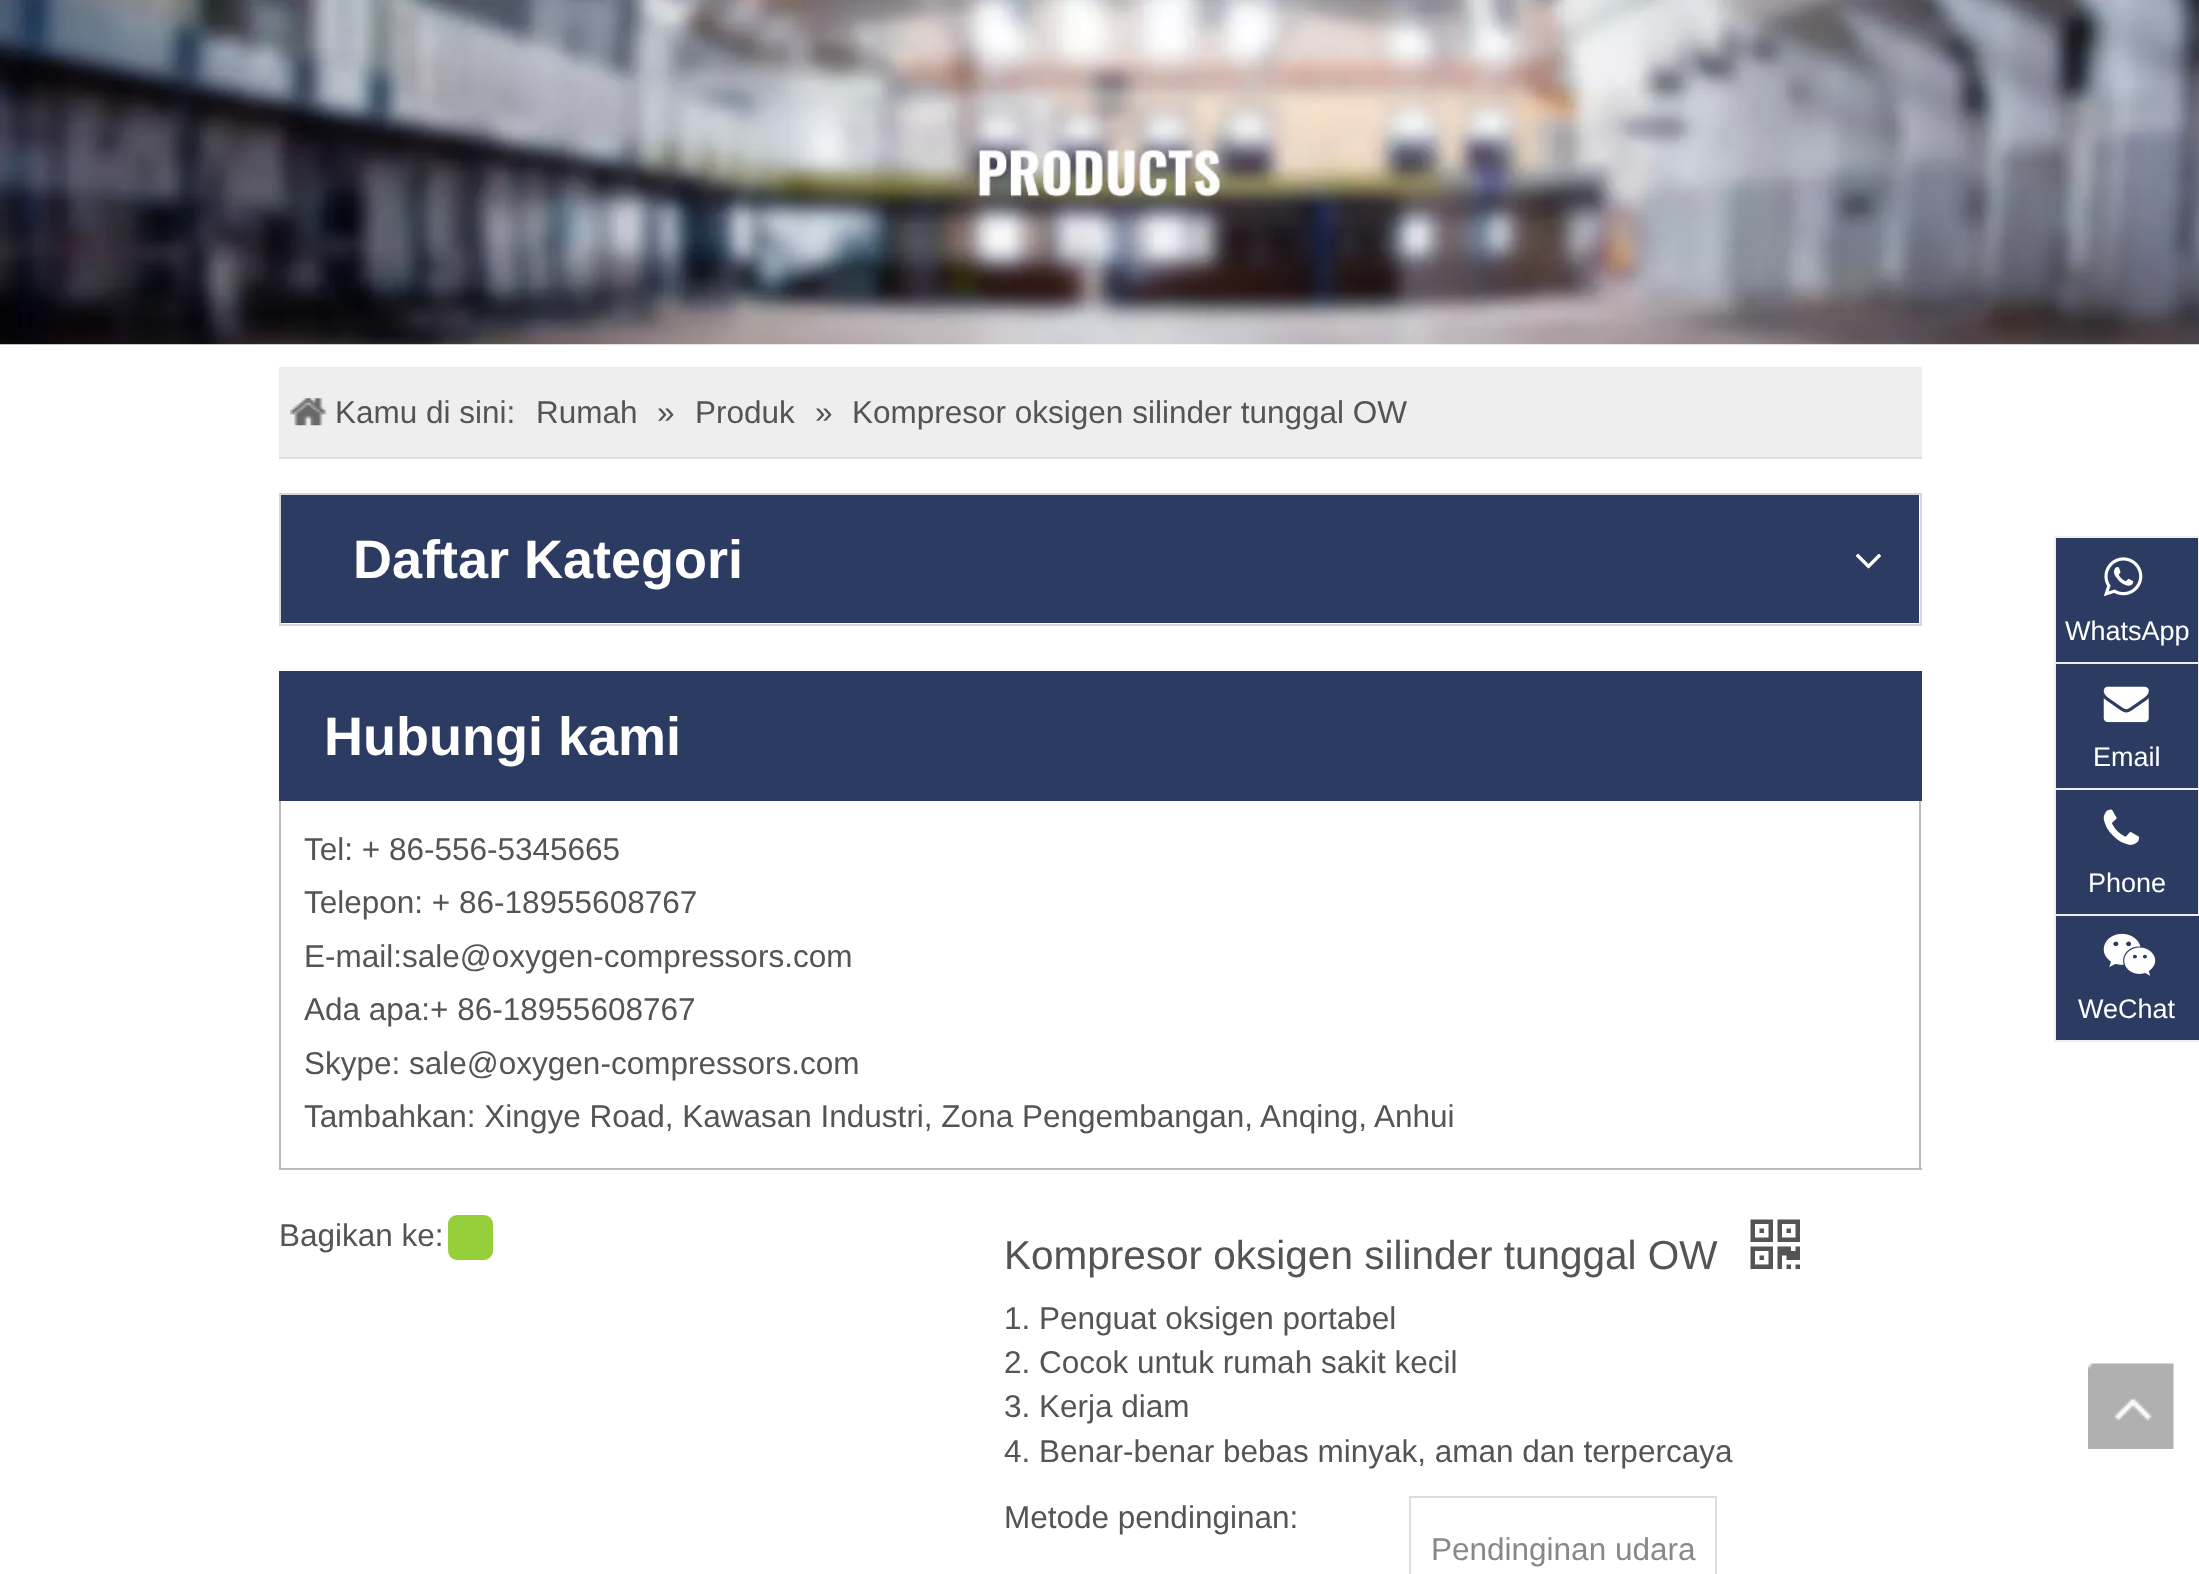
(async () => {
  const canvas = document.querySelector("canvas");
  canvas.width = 2199;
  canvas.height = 1574;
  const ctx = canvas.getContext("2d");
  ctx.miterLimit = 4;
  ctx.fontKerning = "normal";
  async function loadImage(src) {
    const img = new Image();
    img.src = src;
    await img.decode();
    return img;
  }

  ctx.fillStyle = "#ffffff";
  ctx.fillRect(0, 0, 2199, 1574);
  ctx.drawImage(await loadImage("img/1.png"), 0, 0, 2199, 345);
  ctx.fillStyle = "#eeeeee";
  ctx.fillRect(279, 367, 1643, 90);
  ctx.fillStyle = "#dddddd";
  ctx.fillRect(279, 457, 1643, 2);
  ctx.drawImage(await loadImage("img/2.png"), 290, 398, 37, 28);
  ctx.strokeStyle = "#d6d6d6";
  ctx.lineWidth = 2;
  ctx.strokeRect(280, 494, 1641, 131);
  ctx.fillStyle = "#2b3b62";
  ctx.fillRect(281, 495, 1638, 128);
  ctx.drawImage(await loadImage("img/3.png"), 1856, 553, 25, 16);
  for (const [x, y, w, h, color] of [
    [279, 671, 1643, 130, "#2b3b62"],
    [1919, 801, 2, 369, "#bbbbbb"],
    [279, 1168, 1643, 2, "#bbbbbb"],
    [279, 801, 2, 369, "#bbbbbb"],
  ]) {
    ctx.fillStyle = color;
    ctx.fillRect(x, y, w, h);
  }
  ctx.fillStyle = "#95d03a";
  ctx.beginPath();
  ctx.roundRect(448, 1215, 45, 45, 9);
  ctx.fill();
  ctx.drawImage(await loadImage("img/4.png"), 1750, 1219, 50, 50);
  ctx.strokeStyle = "#dddddd";
  ctx.strokeRect(1410, 1497, 306, 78);
  for (const [x, y, w, h, color] of [
    [2056, 538, 142, 124, "#2b3b62"],
    [2054, 536, 145, 2, "#eeeeee"],
    [2198, 536, 1, 126, "#eeeeee"],
    [2054, 536, 2, 126, "#eeeeee"],
  ]) {
    ctx.fillStyle = color;
    ctx.fillRect(x, y, w, h);
  }
  ctx.drawImage(await loadImage("img/5.png"), 2103, 557, 40, 40);
  for (const [x, y, w, h, color] of [
    [2056, 664, 142, 124, "#2b3b62"],
    [2054, 662, 145, 2, "#eeeeee"],
    [2198, 662, 1, 126, "#eeeeee"],
    [2054, 662, 2, 126, "#eeeeee"],
  ]) {
    ctx.fillStyle = color;
    ctx.fillRect(x, y, w, h);
  }
  ctx.drawImage(await loadImage("img/6.png"), 2103, 686, 46, 37);
  for (const [x, y, w, h, color] of [
    [2056, 790, 142, 124, "#2b3b62"],
    [2054, 788, 145, 2, "#eeeeee"],
    [2198, 788, 1, 126, "#eeeeee"],
    [2054, 788, 2, 126, "#eeeeee"],
  ]) {
    ctx.fillStyle = color;
    ctx.fillRect(x, y, w, h);
  }
  ctx.drawImage(await loadImage("img/7.png"), 2103, 809, 37, 36);
  ctx.fillStyle = "#2b3b62";
  ctx.beginPath();
  ctx.rect(2055, 915, 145, 126);
  ctx.fill();
  ctx.strokeStyle = "#eeeeee";
  ctx.stroke();
  ctx.drawImage(await loadImage("img/8.png"), 2103, 933, 53, 43);
  ctx.drawImage(await loadImage("img/9.png"), 2088, 1363, 86, 86);
  ctx.font = "31.5px Liberation Sans";
  ctx.fillStyle = "#545454";
  for (const [text, x, y] of [
    ["Kamu di sini:", 335, 423],
    ["Rumah", 536, 423],
    ["»", 657, 423],
    ["Produk", 695, 423],
    ["»", 815, 423],
    ["Kompresor oksigen silinder tunggal OW", 852, 423],
  ]) {
    ctx.fillText(text, x, y);
  }
  ctx.font = "bold 54px Liberation Sans";
  ctx.fillStyle = "#ffffff";
  ctx.fillText("Daftar Kategori", 353, 578);
  ctx.fillText("Hubungi kami", 324, 755);
  ctx.font = "31.5px Liberation Sans";
  ctx.fillStyle = "#545454";
  for (const [text, x, y] of [
    ["Tel: + 86-556-5345665", 304, 860],
    ["Telepon: + 86-18955608767", 304, 913],
    ["E-mail:sale@oxygen-compressors.com", 304, 967],
    ["Ada apa:+ 86-18955608767", 304, 1020],
    ["Skype: sale@oxygen-compressors.com", 304, 1074],
    ["Tambahkan: Xingye Road, Kawasan Industri, Zona Pengembangan, Anqing, Anhui", 304, 1127],
    ["Bagikan ke:", 279, 1246],
  ]) {
    ctx.fillText(text, x, y);
  }
  ctx.font = "40.5px Liberation Sans";
  ctx.fillText("Kompresor oksigen silinder tunggal OW", 1004, 1269);
  ctx.font = "31.5px Liberation Sans";
  for (const [text, x, y] of [
    ["1. Penguat oksigen portabel", 1004, 1329],
    ["2. Cocok untuk rumah sakit kecil", 1004, 1373],
    ["3. Kerja diam", 1004, 1417],
    ["4. Benar-benar bebas minyak, aman dan terpercaya", 1004, 1462],
    ["Metode pendinginan:", 1004, 1528],
  ]) {
    ctx.fillText(text, x, y);
  }
  ctx.fillStyle = "#888888";
  ctx.fillText("Pendinginan udara", 1431, 1560);
  ctx.font = "27px Liberation Sans";
  ctx.fillStyle = "#ffffff";
  for (const [text, x, y] of [
    ["WhatsApp", 2065, 640],
    ["Email", 2093, 766],
    ["Phone", 2088, 892],
    ["WeChat", 2078, 1018],
  ]) {
    ctx.fillText(text, x, y);
  }
})();
